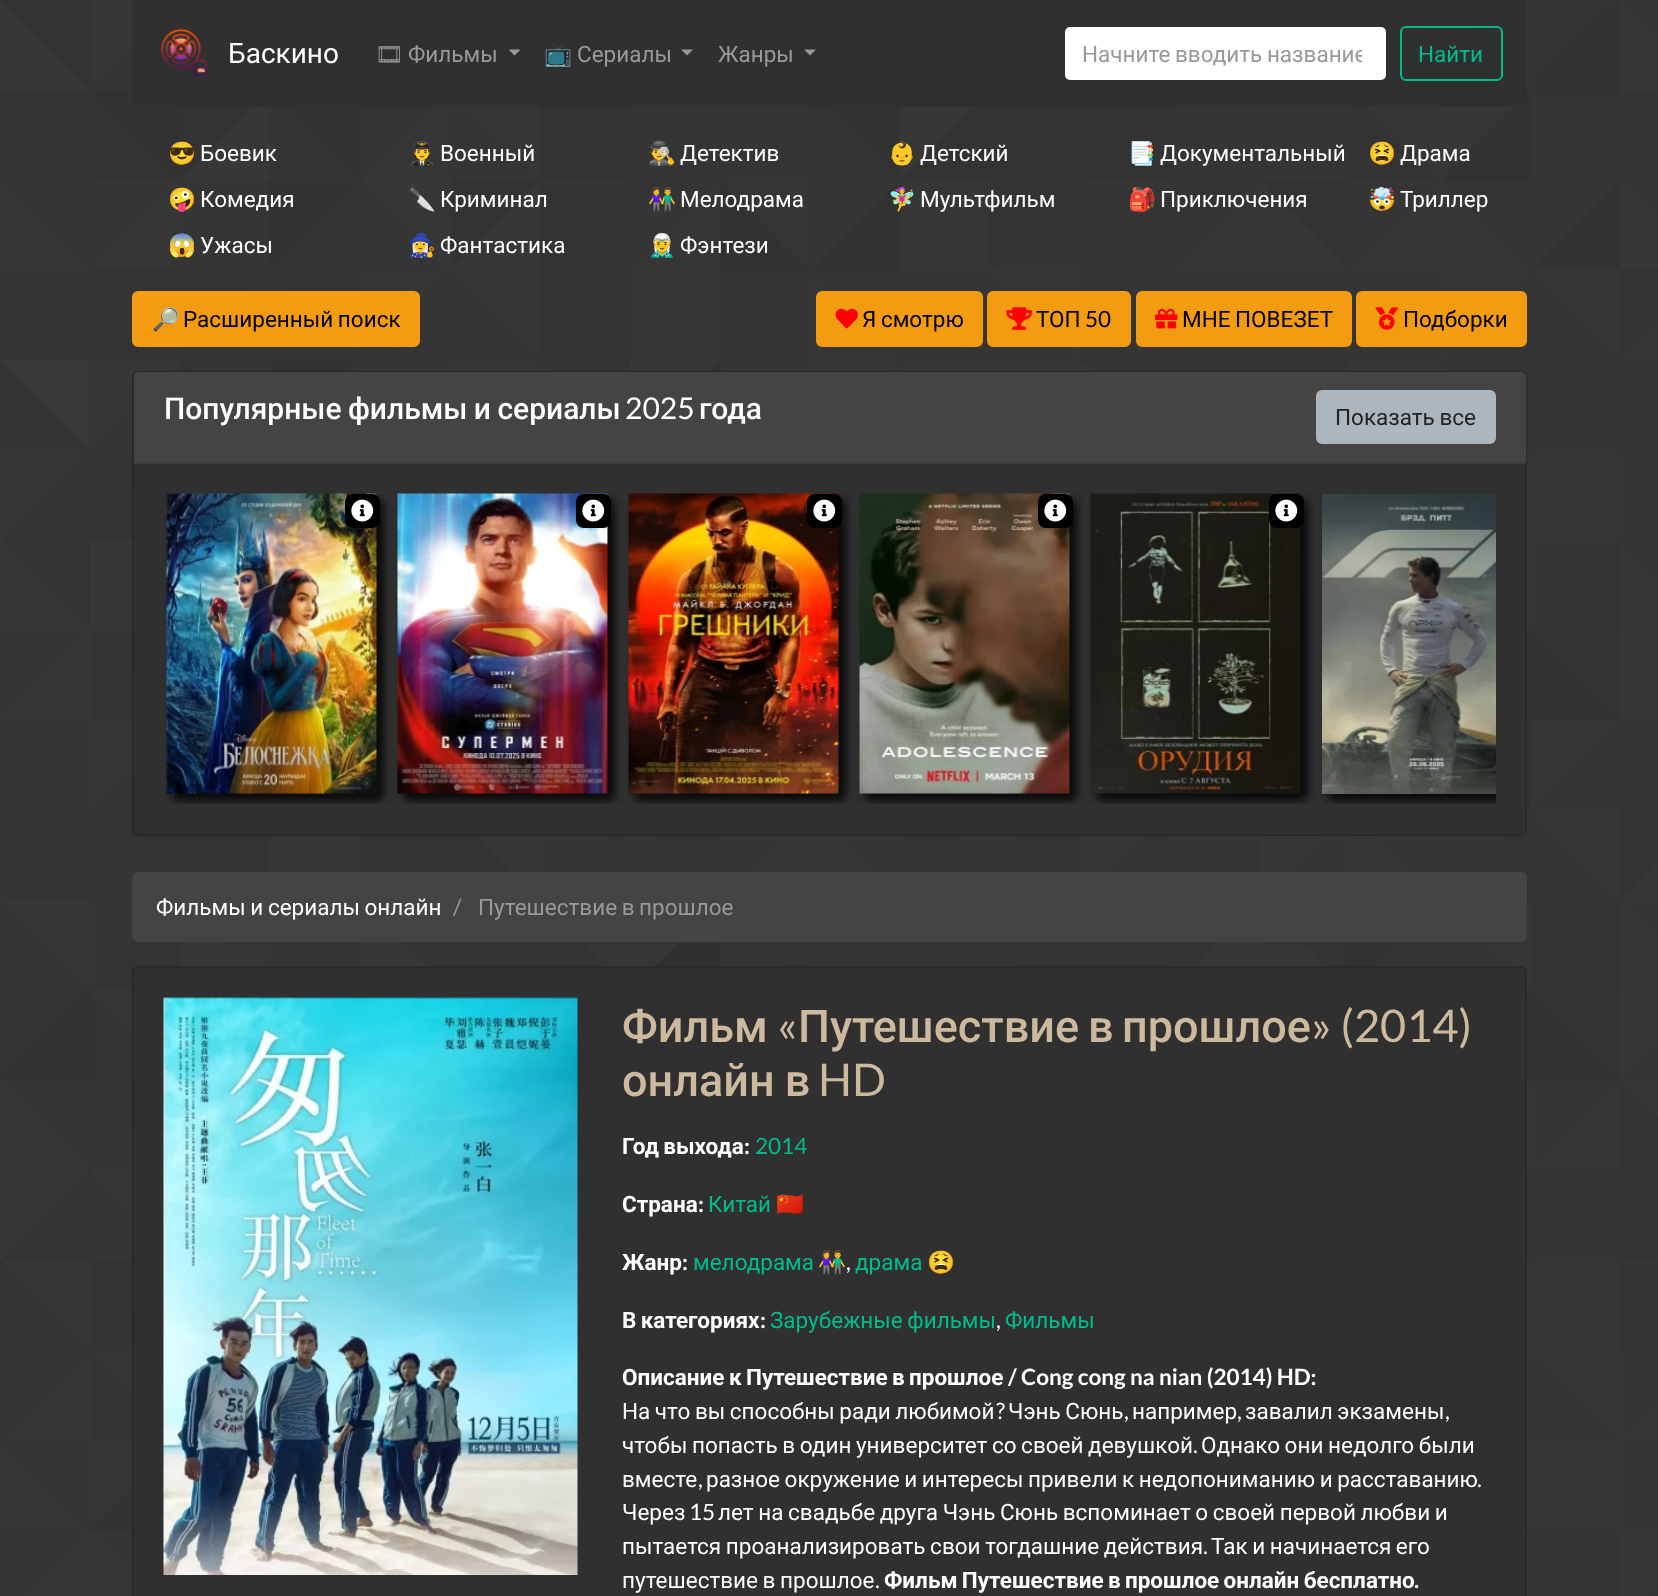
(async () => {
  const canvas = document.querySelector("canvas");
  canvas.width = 1658;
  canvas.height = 1596;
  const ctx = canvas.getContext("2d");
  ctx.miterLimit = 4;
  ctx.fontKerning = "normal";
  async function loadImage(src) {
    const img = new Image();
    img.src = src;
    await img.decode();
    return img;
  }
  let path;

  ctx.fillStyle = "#ffffff";
  ctx.fillRect(0, 0, 1658, 1596);
  ctx.drawImage(await loadImage("img/1.png"), 0, 0, 1658, 1596);
  ctx.fillStyle = "#303030";
  ctx.fillRect(132, 0, 1395, 107);
  ctx.drawImage(await loadImage("img/2.png"), 160, 28, 48, 49);
  ctx.fillStyle = "#989898";
  path = new Path2D("M508.5 49.5H520.5L514.5 55.5Z");
  ctx.fill(path);
  path = new Path2D("M681 49.5H693L687 55.5Z");
  ctx.fill(path);
  path = new Path2D("M804 49.5H816L810 55.5Z");
  ctx.fill(path);
  ctx.fillStyle = "#ffffff";
  ctx.beginPath();
  ctx.roundRect(1065, 27, 321, 53, 5);
  ctx.fill();
  ctx.beginPath();
  ctx.roundRect(1401, 27, 101, 53, 5);
  ctx.strokeStyle = "#00bc8c";
  ctx.lineWidth = 2;
  ctx.stroke();
  ctx.fillStyle = "#f39c12";
  ctx.beginPath();
  ctx.roundRect(133, 292, 286, 54, 5);
  ctx.fill();
  ctx.strokeStyle = "#f39c12";
  ctx.stroke();
  ctx.beginPath();
  ctx.roundRect(817, 292, 165, 54, 5);
  ctx.fill();
  ctx.stroke();
  ctx.drawImage(await loadImage("img/3.png"), 835, 308, 23, 21);
  ctx.beginPath();
  ctx.roundRect(988, 292, 142, 54, 5);
  ctx.fill();
  ctx.stroke();
  ctx.drawImage(await loadImage("img/4.png"), 1006, 307, 26, 23);
  ctx.beginPath();
  ctx.roundRect(1137, 292, 214, 54, 5);
  ctx.fill();
  ctx.stroke();
  ctx.drawImage(await loadImage("img/5.png"), 1155, 308, 23, 21);
  ctx.beginPath();
  ctx.roundRect(1357, 292, 169, 54, 5);
  ctx.fill();
  ctx.stroke();
  ctx.drawImage(await loadImage("img/6.png"), 1375, 307, 23, 23);
  ctx.fillStyle = "#303030";
  ctx.beginPath();
  ctx.roundRect(133, 372, 1393, 463, 5);
  ctx.fill();
  ctx.strokeStyle = "#2a2a2a";
  ctx.stroke();
  ctx.fillStyle = "#444444";
  ctx.beginPath();
  ctx.roundRect(134, 372, 1392, 92, [5, 5, 0, 0]);
  ctx.fill();
  ctx.fillStyle = "#3c3c3c";
  ctx.fillRect(134, 462, 1392, 2);
  ctx.fillStyle = "#adb5bd";
  ctx.beginPath();
  ctx.roundRect(1317, 391, 178, 52, 5);
  ctx.fill();
  ctx.strokeStyle = "#adb5bd";
  ctx.stroke();
  ctx.save();
  ctx.beginPath();
  ctx.rect(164, 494, 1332, 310);
  ctx.clip();
  ctx.fillStyle = "rgba(0, 0, 0, 0.54)";
  ctx.filter = "blur(4.5px)";
  ctx.beginPath();
  ctx.roundRect(173, 500, 210, 300, 8);
  ctx.fill();
  ctx.filter = "none";
  ctx.filter = "blur(4.5px)";
  ctx.beginPath();
  ctx.rect(173, 500, 210, 300);
  ctx.fill();
  ctx.filter = "none";
  ctx.restore();
  ctx.drawImage(await loadImage("img/7.png"), 166, 493, 211, 301);
  ctx.fillStyle = "#000000";
  ctx.beginPath();
  ctx.roundRect(345, 494, 35, 34, 8);
  ctx.fill();
  ctx.drawImage(await loadImage("img/8.png"), 351, 499, 23, 23);
  ctx.save();
  ctx.beginPath();
  ctx.rect(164, 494, 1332, 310);
  ctx.clip();
  ctx.fillStyle = "rgba(0, 0, 0, 0.54)";
  ctx.filter = "blur(4.5px)";
  ctx.beginPath();
  ctx.roundRect(404, 500, 210, 300, 8);
  ctx.fill();
  ctx.filter = "none";
  ctx.filter = "blur(4.5px)";
  ctx.beginPath();
  ctx.rect(404, 500, 210, 300);
  ctx.fill();
  ctx.filter = "none";
  ctx.restore();
  ctx.drawImage(await loadImage("img/9.png"), 397, 493, 211, 301);
  ctx.beginPath();
  ctx.roundRect(576, 494, 35, 34, 8);
  ctx.fill();
  ctx.drawImage(await loadImage("img/8.png"), 582, 499, 23, 23);
  ctx.save();
  ctx.beginPath();
  ctx.rect(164, 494, 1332, 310);
  ctx.clip();
  ctx.fillStyle = "rgba(0, 0, 0, 0.54)";
  ctx.filter = "blur(4.5px)";
  ctx.beginPath();
  ctx.roundRect(635, 500, 210, 300, 8);
  ctx.fill();
  ctx.filter = "none";
  ctx.filter = "blur(4.5px)";
  ctx.beginPath();
  ctx.rect(635, 500, 210, 300);
  ctx.fill();
  ctx.filter = "none";
  ctx.restore();
  ctx.drawImage(await loadImage("img/10.png"), 628, 493, 211, 301);
  ctx.beginPath();
  ctx.roundRect(807, 494, 35, 34, 8);
  ctx.fill();
  ctx.drawImage(await loadImage("img/8.png"), 813, 499, 23, 23);
  ctx.save();
  ctx.beginPath();
  ctx.rect(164, 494, 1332, 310);
  ctx.clip();
  ctx.fillStyle = "rgba(0, 0, 0, 0.54)";
  ctx.filter = "blur(4.5px)";
  ctx.beginPath();
  ctx.roundRect(866, 500, 210, 300, 8);
  ctx.fill();
  ctx.filter = "none";
  ctx.filter = "blur(4.5px)";
  ctx.beginPath();
  ctx.rect(866, 500, 210, 300);
  ctx.fill();
  ctx.filter = "none";
  ctx.restore();
  ctx.drawImage(await loadImage("img/11.png"), 859, 493, 211, 301);
  ctx.beginPath();
  ctx.roundRect(1038, 494, 35, 34, 8);
  ctx.fill();
  ctx.drawImage(await loadImage("img/8.png"), 1044, 499, 23, 23);
  ctx.save();
  ctx.beginPath();
  ctx.rect(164, 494, 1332, 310);
  ctx.clip();
  ctx.fillStyle = "rgba(0, 0, 0, 0.54)";
  ctx.filter = "blur(4.5px)";
  ctx.beginPath();
  ctx.roundRect(1097, 500, 210, 300, 8);
  ctx.fill();
  ctx.filter = "none";
  ctx.filter = "blur(4.5px)";
  ctx.beginPath();
  ctx.rect(1097, 500, 210, 300);
  ctx.fill();
  ctx.filter = "none";
  ctx.restore();
  ctx.drawImage(await loadImage("img/12.png"), 1090, 493, 211, 301);
  ctx.beginPath();
  ctx.roundRect(1269, 494, 35, 34, 8);
  ctx.fill();
  ctx.drawImage(await loadImage("img/8.png"), 1275, 499, 23, 23);
  ctx.save();
  ctx.beginPath();
  ctx.rect(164, 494, 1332, 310);
  ctx.clip();
  ctx.fillStyle = "rgba(0, 0, 0, 0.54)";
  ctx.filter = "blur(4.5px)";
  ctx.beginPath();
  ctx.roundRect(1328, 500, 210, 300, 8);
  ctx.fill();
  ctx.filter = "none";
  ctx.filter = "blur(4.5px)";
  ctx.beginPath();
  ctx.rect(1328, 500, 210, 300);
  ctx.fill();
  ctx.filter = "none";
  ctx.restore();
  ctx.drawImage(await loadImage("img/13.png"), 1322, 494, 174, 300);
  ctx.fillStyle = "#444444";
  ctx.beginPath();
  ctx.roundRect(132, 872, 1395, 70, 6);
  ctx.fill();
  ctx.fillStyle = "#303030";
  ctx.beginPath();
  ctx.roundRect(133, 967, 1393, 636, 5);
  ctx.fill();
  ctx.strokeStyle = "#2a2a2a";
  ctx.stroke();
  ctx.drawImage(await loadImage("img/14.png"), 163, 997, 415, 578);
  ctx.font = "28px Roboto";
  ctx.fillStyle = "#ffffff";
  ctx.fillText("Баскино", 228, 63);
  ctx.font = "22.5px Noto Emoji";
  ctx.fillStyle = "#999999";
  ctx.fillText("🎞", 375, 62);
  ctx.font = "22.5px Roboto";
  ctx.fillText("Фильмы", 408, 62);
  ctx.font = "22.5px Noto Color Emoji";
  ctx.fillText("📺", 544, 62);
  ctx.font = "22.5px Roboto";
  ctx.fillText("Сериалы", 577, 62);
  ctx.fillText("Жанры", 718, 62);
  ctx.save();
  ctx.beginPath();
  ctx.rect(1083, 39, 279, 29);
  ctx.clip();
  ctx.wordSpacing = "-1px";
  ctx.fillText("Начните вводить название", 1082, 62);
  ctx.restore();
  ctx.fillStyle = "#00bc8c";
  ctx.fillText("Найти", 1418, 62);
  ctx.font = "22.5px Noto Color Emoji";
  ctx.fillStyle = "#ffffff";
  ctx.fillText("😎", 168, 161);
  ctx.font = "22.5px Roboto";
  ctx.fillText("Боевик", 200, 161);
  ctx.font = "22.5px Noto Color Emoji";
  ctx.fillText("👨‍✈️", 408, 161);
  ctx.font = "22.5px Roboto";
  ctx.fillText("Военный", 440, 161);
  ctx.font = "22.5px Noto Color Emoji";
  ctx.fillText("🕵️‍♂️", 648, 161);
  ctx.font = "22.5px Roboto";
  ctx.fillText("Детектив", 680, 161);
  ctx.font = "22.5px Noto Color Emoji";
  ctx.fillText("👶", 888, 161);
  ctx.font = "22.5px Roboto";
  ctx.fillText("Детский", 920, 161);
  ctx.font = "22.5px Noto Color Emoji";
  ctx.fillText("📑", 1128, 161);
  ctx.font = "22.5px Roboto";
  ctx.fillText("Документальный", 1160, 161);
  ctx.font = "22.5px Noto Color Emoji";
  ctx.fillText("😫", 1368, 161);
  ctx.font = "22.5px Roboto";
  ctx.fillText("Драма", 1400, 161);
  ctx.font = "22.5px Noto Color Emoji";
  ctx.fillText("🤪", 168, 207);
  ctx.font = "22.5px Roboto";
  ctx.fillText("Комедия", 200, 207);
  ctx.font = "22.5px Noto Color Emoji";
  ctx.fillText("🔪", 408, 207);
  ctx.font = "22.5px Roboto";
  ctx.fillText("Криминал", 440, 207);
  ctx.font = "22.5px Noto Color Emoji";
  ctx.fillText("👫", 648, 207);
  ctx.font = "22.5px Roboto";
  ctx.fillText("Мелодрама", 680, 207);
  ctx.font = "22.5px Noto Color Emoji";
  ctx.fillText("🧚‍♀️", 888, 207);
  ctx.font = "22.5px Roboto";
  ctx.fillText("Мультфильм", 920, 207);
  ctx.font = "22.5px Noto Color Emoji";
  ctx.fillText("🎒", 1128, 207);
  ctx.font = "22.5px Roboto";
  ctx.fillText("Приключения", 1160, 207);
  ctx.font = "22.5px Noto Color Emoji";
  ctx.fillText("🤯", 1368, 207);
  ctx.font = "22.5px Roboto";
  ctx.fillText("Триллер", 1400, 207);
  ctx.font = "22.5px Noto Color Emoji";
  ctx.fillText("😱", 168, 253);
  ctx.font = "22.5px Roboto";
  ctx.fillText("Ужасы", 200, 253);
  ctx.font = "22.5px Noto Color Emoji";
  ctx.fillText("🧙‍♀️", 408, 253);
  ctx.font = "22.5px Roboto";
  ctx.fillText("Фантастика", 440, 253);
  ctx.font = "22.5px Noto Color Emoji";
  ctx.fillText("🧝‍♂️", 648, 253);
  ctx.font = "22.5px Roboto";
  ctx.fillText("Фэнтези", 680, 253);
  ctx.font = "22.5px Noto Color Emoji";
  ctx.fillStyle = "#000000";
  ctx.fillText("🔎", 152, 327);
  ctx.wordSpacing = "-1px";
  ctx.font = "22.5px Roboto";
  ctx.fillText("Расширенный поиск", 183, 327);
  ctx.fillText("Я смотрю", 862, 327);
  ctx.wordSpacing = "0px";
  ctx.fillText("ТОП", 1036, 327);
  ctx.font = "22.5px Lato";
  ctx.fillText("50", 1085, 327);
  ctx.wordSpacing = "-1px";
  ctx.font = "22.5px Roboto";
  ctx.fillText("МНЕ ПОВЕЗЕТ", 1182, 327);
  ctx.wordSpacing = "0px";
  ctx.fillText("Подборки", 1403, 327);
  ctx.wordSpacing = "-1px";
  ctx.font = "500 30px Roboto";
  ctx.fillStyle = "#ffffff";
  ctx.fillText("Популярные фильмы и сериалы", 164, 419);
  ctx.wordSpacing = "0px";
  ctx.font = "30px Lato";
  ctx.fillText("2025", 625, 419);
  ctx.font = "500 30px Roboto";
  ctx.fillText("года", 699, 419);
  ctx.wordSpacing = "-1px";
  ctx.font = "22.5px Roboto";
  ctx.fillStyle = "#222222";
  ctx.fillText("Показать все", 1335, 425);
  ctx.fillStyle = "#ffffff";
  ctx.fillText("Фильмы и сериалы онлайн", 156, 915);
  ctx.wordSpacing = "0px";
  ctx.font = "22.5px Lato";
  ctx.fillStyle = "#999999";
  ctx.fillText("/", 453, 915);
  ctx.wordSpacing = "-1px";
  ctx.font = "22.5px Roboto";
  ctx.fillText("Путешествие в прошлое", 478, 915);
  ctx.wordSpacing = "0px";
  ctx.font = "500 45px Roboto";
  ctx.fillStyle = "#cdb99e";
  ctx.fillText("Фильм", 622, 1042);
  ctx.font = "45px Lato";
  ctx.fillText("«", 777, 1042);
  ctx.font = "500 45px Roboto";
  for (const [text, x, y] of [
    ["Путешествие", 798, 1042],
    ["в", 1088, 1042],
    ["прошлое", 1122, 1042],
  ]) {
    ctx.fillText(text, x, y);
  }
  ctx.font = "45px Lato";
  ctx.fillText("» (2014)", 1311, 1042);
  ctx.wordSpacing = "-1px";
  ctx.font = "500 45px Roboto";
  ctx.fillText("онлайн в", 622, 1096);
  ctx.wordSpacing = "0px";
  ctx.font = "45px Lato";
  ctx.fillText("HD", 818, 1096);
  ctx.wordSpacing = "-1.25px";
  ctx.font = "bold 22.5px Roboto";
  ctx.fillStyle = "#ffffff";
  ctx.fillText("Год выхода", 622, 1154);
  ctx.wordSpacing = "0px";
  ctx.font = "bold 22.5px Lato";
  ctx.fillText(":", 744, 1154);
  ctx.font = "22.5px Lato";
  ctx.fillStyle = "#00bc8c";
  ctx.fillText("2014", 755, 1154);
  ctx.font = "bold 22.5px Roboto";
  ctx.fillStyle = "#ffffff";
  ctx.fillText("Страна", 622, 1212);
  ctx.font = "bold 22.5px Lato";
  ctx.fillText(":", 698, 1212);
  ctx.font = "22.5px Roboto";
  ctx.fillStyle = "#00bc8c";
  ctx.fillText("Китай", 708, 1212);
  ctx.font = "22.5px Noto Color Emoji";
  ctx.fillStyle = "#ffffff";
  ctx.fillText("🇨🇳", 776, 1212);
  ctx.font = "bold 22.5px Roboto";
  ctx.fillText("Жанр", 622, 1270);
  ctx.font = "bold 22.5px Lato";
  ctx.fillText(":", 682, 1270);
  ctx.font = "22.5px Roboto";
  ctx.fillStyle = "#00bc8c";
  ctx.fillText("мелодрама", 693, 1270);
  ctx.font = "22.5px Noto Color Emoji";
  ctx.fillStyle = "#ffffff";
  ctx.fillText("👫", 818, 1270);
  ctx.font = "22.5px Lato";
  ctx.fillText(",", 846, 1270);
  ctx.font = "22.5px Roboto";
  ctx.fillStyle = "#00bc8c";
  ctx.fillText("драма", 855, 1270);
  ctx.font = "22.5px Noto Color Emoji";
  ctx.fillStyle = "#ffffff";
  ctx.fillText("😫", 927, 1270);
  ctx.wordSpacing = "-1.25px";
  ctx.font = "bold 22.5px Roboto";
  ctx.fillText("В категориях", 622, 1328);
  ctx.wordSpacing = "0px";
  ctx.font = "bold 22.5px Lato";
  ctx.fillText(":", 760, 1328);
  ctx.wordSpacing = "-1px";
  ctx.font = "22.5px Roboto";
  ctx.fillStyle = "#00bc8c";
  ctx.fillText("Зарубежные фильмы", 770, 1328);
  ctx.wordSpacing = "0px";
  ctx.font = "22.5px Lato";
  ctx.fillStyle = "#ffffff";
  ctx.fillText(",", 996, 1328);
  ctx.font = "22.5px Roboto";
  ctx.fillStyle = "#00bc8c";
  ctx.fillText("Фильмы", 1005, 1328);
  ctx.font = "bold 22.5px Roboto";
  ctx.fillStyle = "#ffffff";
  for (const [text, x, y] of [
    ["Описание", 622, 1385],
    ["к", 729, 1385],
    ["Путешествие", 746, 1385],
    ["в", 892, 1385],
    ["прошлое", 909, 1385],
  ]) {
    ctx.fillText(text, x, y);
  }
  ctx.font = "bold 22.5px Lato";
  ctx.fillText("/ Cong cong na nian (2014) HD:", 1008, 1385);
  ctx.wordSpacing = "-1px";
  ctx.font = "22.5px Roboto";
  ctx.fillText("На что вы способны ради любимой", 622, 1419);
  ctx.wordSpacing = "0px";
  ctx.font = "22.5px Lato";
  ctx.fillText("?", 996, 1419);
  ctx.wordSpacing = "-1px";
  ctx.font = "22.5px Roboto";
  ctx.fillText("Чэнь Сюнь", 1008, 1419);
  ctx.wordSpacing = "0px";
  ctx.font = "22.5px Lato";
  ctx.fillText(",", 1124, 1419);
  ctx.font = "22.5px Roboto";
  ctx.fillText("например", 1132, 1419);
  ctx.font = "22.5px Lato";
  ctx.fillText(",", 1237, 1419);
  ctx.wordSpacing = "-1px";
  ctx.font = "22.5px Roboto";
  ctx.fillText("завалил экзамены", 1245, 1419);
  ctx.wordSpacing = "0px";
  ctx.font = "22.5px Lato";
  ctx.fillText(",", 1445, 1419);
  ctx.wordSpacing = "-1px";
  ctx.font = "22.5px Roboto";
  ctx.fillText("чтобы попасть в один университет со своей девушкой", 622, 1453);
  ctx.wordSpacing = "0px";
  ctx.font = "22.5px Lato";
  ctx.fillText(".", 1193, 1453);
  ctx.wordSpacing = "-1px";
  ctx.font = "22.5px Roboto";
  ctx.fillText("Однако они недолго были", 1201, 1453);
  ctx.wordSpacing = "0px";
  ctx.fillText("вместе", 622, 1487);
  ctx.font = "22.5px Lato";
  ctx.fillText(",", 698, 1487);
  ctx.wordSpacing = "-1px";
  ctx.font = "22.5px Roboto";
  ctx.fillText("разное окружение и интересы привели к недопониманию и расставанию", 706, 1487);
  ctx.wordSpacing = "0px";
  ctx.font = "22.5px Lato";
  ctx.fillText(".", 1477, 1487);
  ctx.font = "22.5px Roboto";
  ctx.fillText("Через", 622, 1520);
  ctx.font = "22.5px Lato";
  ctx.fillText("15", 689, 1520);
  ctx.wordSpacing = "-1px";
  ctx.font = "22.5px Roboto";
  ctx.fillText("лет на свадьбе друга Чэнь Сюнь вспоминает о своей первой любви и", 718, 1520);
  ctx.fillText("пытается проанализировать свои тогдашние действия", 622, 1554);
  ctx.wordSpacing = "0px";
  ctx.font = "22.5px Lato";
  ctx.fillText(".", 1203, 1554);
  ctx.wordSpacing = "-1px";
  ctx.font = "22.5px Roboto";
  ctx.fillText("Так и начинается его", 1211, 1554);
  ctx.fillText("путешествие в прошлое", 622, 1588);
  ctx.wordSpacing = "0px";
  ctx.font = "22.5px Lato";
  ctx.fillText(".", 875, 1588);
  ctx.wordSpacing = "-1.25px";
  ctx.font = "bold 22.5px Roboto";
  ctx.fillText("Фильм Путешествие в прошлое онлайн бесплатно", 884, 1588);
  ctx.wordSpacing = "0px";
  ctx.font = "bold 22.5px Lato";
  ctx.fillText(".", 1414, 1588);
})();
